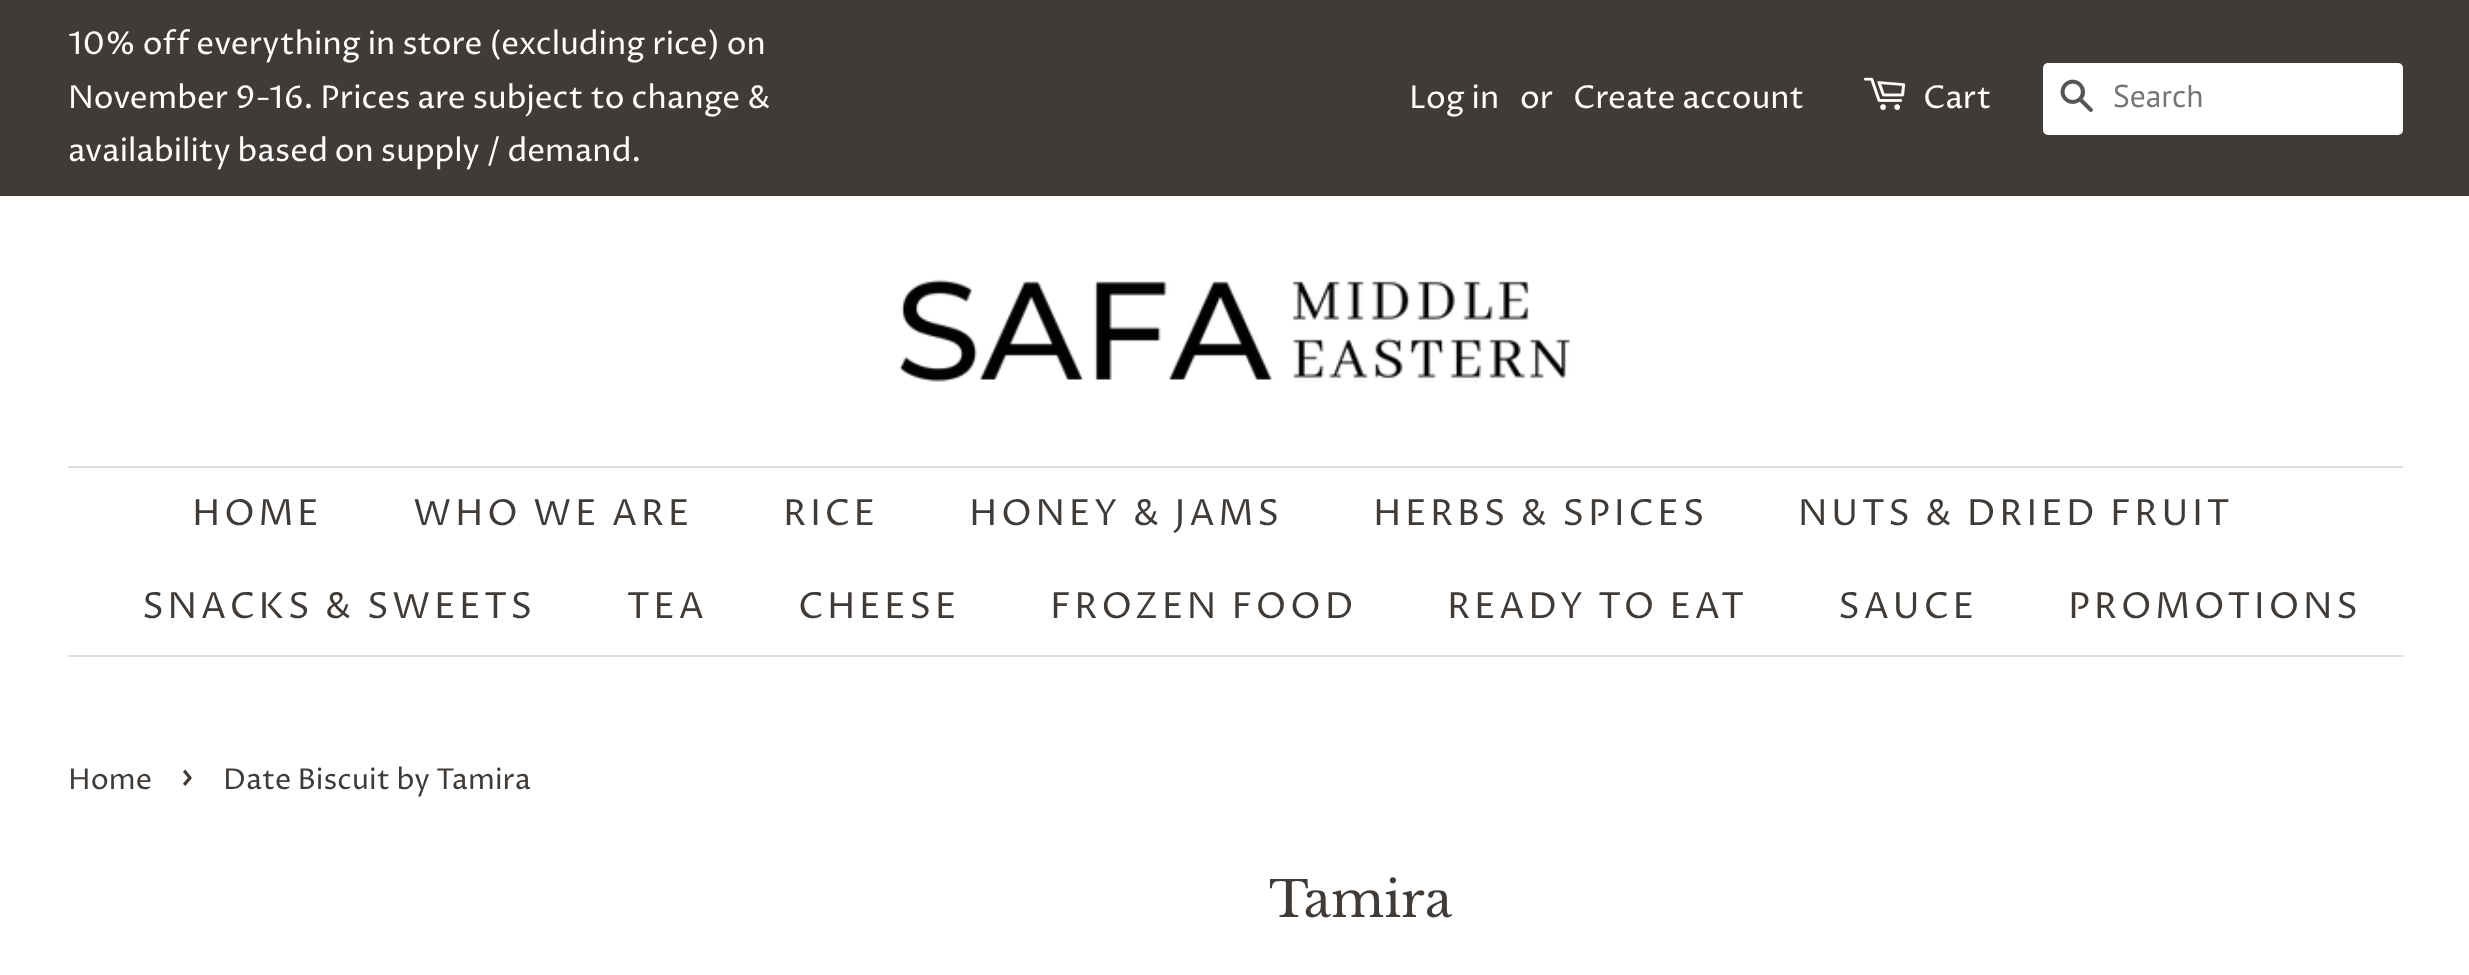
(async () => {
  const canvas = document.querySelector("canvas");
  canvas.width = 2469;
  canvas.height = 975;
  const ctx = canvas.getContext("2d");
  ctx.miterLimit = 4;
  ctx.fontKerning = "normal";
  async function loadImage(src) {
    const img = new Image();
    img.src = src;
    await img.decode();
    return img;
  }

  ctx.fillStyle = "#ffffff";
  ctx.fillRect(0, 0, 2469, 975);
  ctx.fillStyle = "#403b37";
  ctx.fillRect(0, 0, 2469, 196);
  ctx.drawImage(await loadImage("img/1.png"), 1864, 77, 42, 34);
  ctx.fillStyle = "#ffffff";
  ctx.beginPath();
  ctx.roundRect(2043, 63, 360, 72, 5);
  ctx.fill();
  ctx.drawImage(await loadImage("img/2.png"), 2060, 79, 33, 33);
  ctx.drawImage(await loadImage("img/3.png"), 899, 279, 673, 103);
  ctx.fillStyle = "#dddddd";
  ctx.fillRect(68, 466, 2335, 2);
  ctx.fillRect(68, 655, 2335, 2);
  ctx.font = "31.5px Proza Libre";
  ctx.fillStyle = "#ffffff";
  for (const [text, x, y] of [
    ["10% off everything in store (excluding rice) on", 68, 54],
    ["November 9-16. Prices are subject to change &", 68, 108],
    ["availability based on supply / demand.", 68, 161],
    ["Log in", 1409, 108],
    ["or", 1520, 108],
    ["Create account", 1573, 108],
    ["Cart", 1923, 108],
  ]) {
    ctx.fillText(text, x, y);
  }
  ctx.font = "31.5px PT Sans";
  ctx.fillStyle = "#757575";
  ctx.fillText("Search", 2113, 107);
  ctx.letterSpacing = "3.6px";
  ctx.font = "36px Proza Libre";
  ctx.fillStyle = "#403b37";
  for (const [text, x, y] of [
    ["HOME", 192, 525],
    ["WHO WE ARE", 413, 525],
    ["RICE", 783, 525],
    ["HONEY & JAMS", 969, 525],
    ["HERBS & SPICES", 1373, 525],
    ["NUTS & DRIED FRUIT", 1798, 525],
    ["SNACKS & SWEETS", 142, 618],
    ["TEA", 627, 618],
    ["CHEESE", 798, 618],
    ["FROZEN FOOD", 1050, 618],
    ["READY TO EAT", 1447, 618],
    ["SAUCE", 1838, 618],
    ["PROMOTIONS", 2068, 618],
  ]) {
    ctx.fillText(text, x, y);
  }
  ctx.letterSpacing = "0px";
  ctx.font = "28.75px Proza Libre";
  ctx.fillText("Home", 68, 789);
  ctx.font = "40px Proza Libre";
  ctx.fillText("›", 180, 789);
  ctx.font = "28.75px Proza Libre";
  ctx.fillText("Date Biscuit by Tamira", 223, 789);
  ctx.font = "49.5px Libre Baskerville";
  ctx.fillText("Tamira", 1269, 917);
})();
